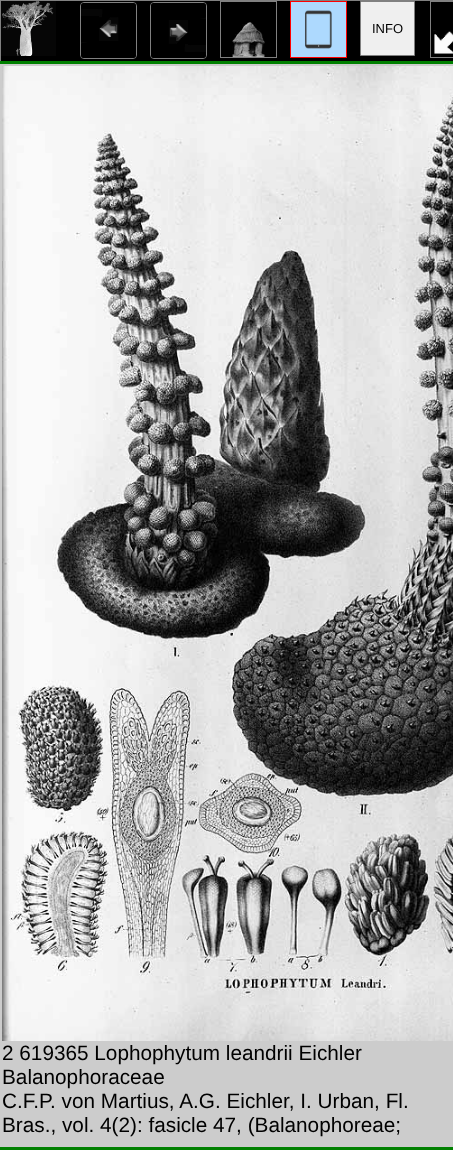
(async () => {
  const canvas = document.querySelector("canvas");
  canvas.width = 453;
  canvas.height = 1150;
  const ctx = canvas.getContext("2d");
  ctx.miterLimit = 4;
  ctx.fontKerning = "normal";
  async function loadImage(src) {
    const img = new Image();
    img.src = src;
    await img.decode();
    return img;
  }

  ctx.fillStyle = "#cccccc";
  ctx.fillRect(0, 0, 453, 1150);
  ctx.fillStyle = "#000000";
  ctx.beginPath();
  ctx.rect(0.5, 0.5, 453, 61);
  ctx.fill();
  ctx.strokeStyle = "#808080";
  ctx.stroke();
  ctx.drawImage(await loadImage("img/1.png"), 1, 1, 55, 55);
  ctx.beginPath();
  ctx.roundRect(80.5, 2.5, 56, 56, 3.5);
  ctx.stroke();
  ctx.drawImage(await loadImage("img/2.png"), 81, 3, 55, 55);
  ctx.beginPath();
  ctx.roundRect(150.5, 2.5, 56, 56, 3.5);
  ctx.stroke();
  ctx.drawImage(await loadImage("img/3.png"), 151, 3, 55, 55);
  ctx.strokeRect(220.5, 1.5, 56, 56);
  ctx.drawImage(await loadImage("img/4.png"), 232, 22, 33, 35);
  ctx.strokeStyle = "#ff0000";
  ctx.strokeRect(290.5, 1.5, 56, 56);
  ctx.drawImage(await loadImage("img/5.png"), 291, 2, 55, 55);
  ctx.fillStyle = "#efefef";
  ctx.beginPath();
  ctx.rect(360.5, 1.5, 54, 54);
  ctx.fill();
  ctx.strokeStyle = "#808080";
  ctx.stroke();
  ctx.strokeRect(430.5, 1.5, 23, 56);
  ctx.drawImage(await loadImage("img/6.png"), 433, 30, 20, 24);
  ctx.fillStyle = "#008000";
  ctx.fillRect(0, 61, 453, 3);
  ctx.fillRect(0, 1147, 453, 3);
  ctx.drawImage(await loadImage("img/7.png"), 2, 66, 451, 975);
  ctx.font = "13px Liberation Sans";
  ctx.fillStyle = "#000000";
  ctx.fillText("INFO", 372, 33);
  ctx.font = "20.75px Liberation Sans";
  for (const [text, x, y] of [
    ["2 619365 Lophophytum leandrii Eichler", 2, 1060],
    ["Balanophoraceae", 2, 1084],
    ["C.F.P. von Martius, A.G. Eichler, I. Urban, Fl.", 2, 1108],
    ["Bras., vol. 4(2): fasicle 47, (Balanophoreae;", 2, 1132],
  ]) {
    ctx.fillText(text, x, y);
  }
})();
